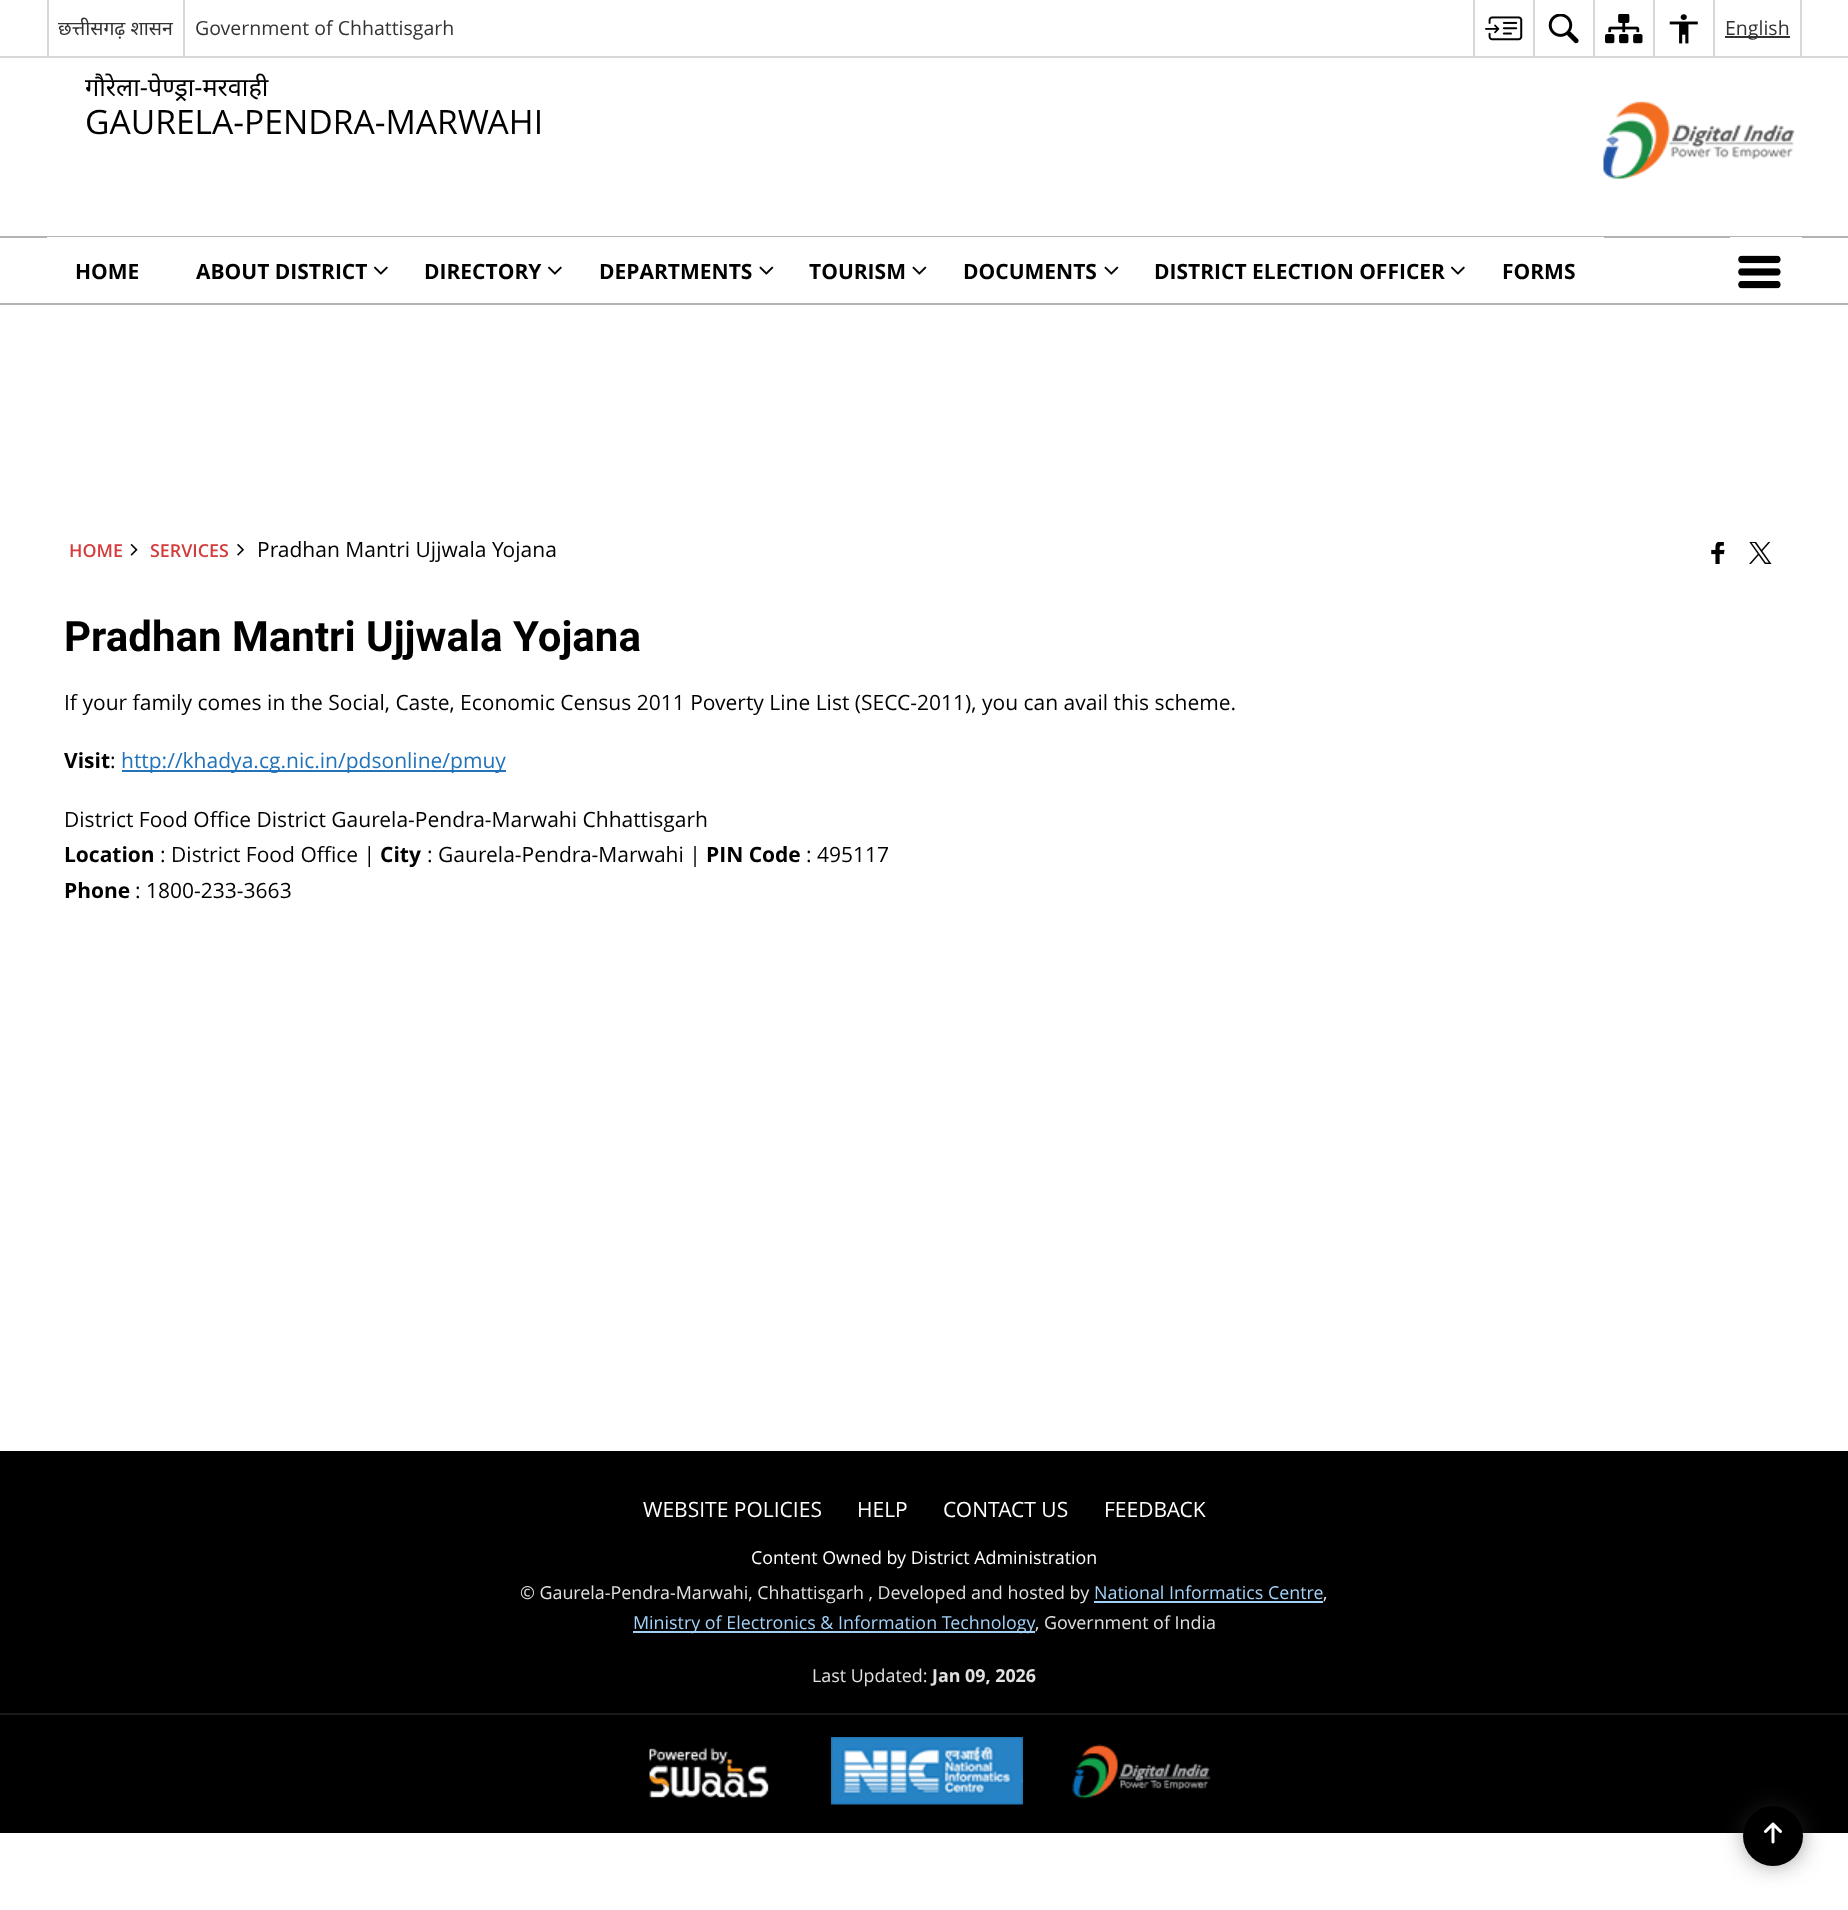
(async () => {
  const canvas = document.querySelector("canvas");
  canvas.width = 1848;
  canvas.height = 1910;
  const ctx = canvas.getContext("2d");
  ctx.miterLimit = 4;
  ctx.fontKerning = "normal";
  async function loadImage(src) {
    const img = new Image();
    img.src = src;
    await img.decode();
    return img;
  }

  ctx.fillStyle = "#ffffff";
  ctx.fillRect(0, 0, 1848, 1910);
  for (const [x, y, w, h, color] of [
    [0, 56, 1848, 2, "#d8d8d8"],
    [47, 0, 2, 56, "#d8d8d8"],
    [183, 0, 2, 56, "#d8d8d8"],
    [1473, 0, 2, 56, "#d8d8d8"],
  ]) {
    ctx.fillStyle = color;
    ctx.fillRect(x, y, w, h);
  }
  ctx.drawImage(await loadImage("img/1.png"), 1485, 16, 38, 25);
  ctx.fillRect(1533, 0, 2, 56);
  ctx.drawImage(await loadImage("img/2.png"), 1548, 14, 31, 30);
  ctx.fillRect(1593, 0, 2, 56);
  ctx.drawImage(await loadImage("img/3.png"), 1605, 14, 38, 30);
  ctx.fillRect(1653, 0, 2, 56);
  ctx.drawImage(await loadImage("img/4.png"), 1669, 14, 29, 30);
  for (const [x, y, w, h, color] of [
    [1800, 0, 2, 56, "#d8d8d8"],
    [1713, 0, 2, 56, "#d8d8d8"],
    [1725, 36, 65, 2, "#333333"],
  ]) {
    ctx.fillStyle = color;
    ctx.fillRect(x, y, w, h);
  }
  ctx.drawImage(await loadImage("img/5.png"), 1603, 101, 192, 78);
  for (const [x, y, w, h, color] of [
    [0, 236, 1848, 2, "#b3b3b3"],
    [0, 303, 1848, 2, "#b3b3b3"],
    [47, 237, 1557, 1, "#ffffff"],
  ]) {
    ctx.fillStyle = color;
    ctx.fillRect(x, y, w, h);
  }
  ctx.drawImage(await loadImage("img/6.png"), 373, 266, 15, 9);
  ctx.drawImage(await loadImage("img/6.png"), 547, 266, 15, 9);
  ctx.drawImage(await loadImage("img/7.png"), 759, 266, 15, 9);
  ctx.drawImage(await loadImage("img/7.png"), 912, 266, 15, 9);
  ctx.drawImage(await loadImage("img/7.png"), 1104, 266, 15, 9);
  ctx.drawImage(await loadImage("img/6.png"), 1450, 266, 15, 9);
  ctx.fillRect(1730, 237, 72, 1);
  ctx.drawImage(await loadImage("img/8.png"), 1738, 255, 43, 34);
  ctx.drawImage(await loadImage("img/9.png"), 130, 544, 8, 12);
  ctx.drawImage(await loadImage("img/10.png"), 237, 544, 7, 12);
  ctx.drawImage(await loadImage("img/11.png"), 1711, 542, 14, 22);
  ctx.drawImage(await loadImage("img/12.png"), 1749, 542, 23, 22);
  for (const [x, y, w, h, color] of [
    [122, 770, 384, 2, "#2273b9"],
    [0, 1451, 1848, 382, "#000000"],
    [1094, 1601, 229, 2, "#a3d2f9"],
    [633, 1631, 402, 2, "#a3d2f9"],
    [0, 1713, 1848, 2, "#1a1a1a"],
  ]) {
    ctx.fillStyle = color;
    ctx.fillRect(x, y, w, h);
  }
  ctx.drawImage(await loadImage("img/13.png"), 649, 1747, 120, 51);
  ctx.drawImage(await loadImage("img/14.png"), 831, 1737, 192, 68);
  ctx.drawImage(await loadImage("img/15.png"), 1072, 1744, 139, 55);
  ctx.fillStyle = "#3c3c3c";
  ctx.filter = "blur(14px)";
  ctx.beginPath();
  ctx.roundRect(1751, 1814, 45, 45, 22.5);
  ctx.fill();
  ctx.filter = "none";
  ctx.fillStyle = "#000000";
  ctx.beginPath();
  ctx.arc(1773, 1836, 30, 0, Math.PI * 2);
  ctx.fill();
  ctx.drawImage(await loadImage("img/16.png"), 1764, 1822, 18, 22);
  ctx.font = "19.5px Noto Sans";
  ctx.fillStyle = "#333333";
  ctx.fillText("छत्तीसगढ़ शासन", 58, 35);
  ctx.font = "19.5px Open Sans";
  ctx.fillText("Government of Chhattisgarh", 195, 35);
  ctx.fillText("English", 1725, 35);
  ctx.font = "25.25px Noto Sans";
  ctx.fillStyle = "#000000";
  ctx.fillText("गौरेला-पेण्ड्रा-मरवाही", 85, 96);
  ctx.font = "33.6px Open Sans";
  ctx.fillText("GAURELA-PENDRA-MARWAHI", 85, 134);
  ctx.font = "bold 21px Open Sans";
  for (const [text, x, y] of [
    ["HOME", 75, 279],
    ["ABOUT DISTRICT", 196, 279],
    ["DIRECTORY", 424, 279],
    ["DEPARTMENTS", 599, 279],
    ["TOURISM", 809, 279],
    ["DOCUMENTS", 963, 279],
    ["DISTRICT ELECTION OFFICER", 1154, 279],
    ["FORMS", 1502, 279],
  ]) {
    ctx.fillText(text, x, y);
  }
  ctx.font = "600 17.85px Open Sans";
  ctx.fillStyle = "#d43c3c";
  ctx.fillText("HOME", 69, 557);
  ctx.fillText("SERVICES", 150, 557);
  ctx.font = "21px Open Sans";
  ctx.fillStyle = "#000000";
  ctx.fillText("Pradhan Mantri Ujjwala Yojana", 257, 557);
  ctx.font = "bold 42px Roboto";
  ctx.fillText("Pradhan Mantri Ujjwala Yojana", 64, 651);
  ctx.font = "21px Open Sans";
  ctx.fillText("If your family comes in the Social, Caste, Economic Census 2011 Poverty Line List (SECC-2011), you can avail this scheme.", 64, 710);
  ctx.font = "bold 21px Open Sans";
  ctx.fillText("Visit", 64, 768);
  ctx.font = "21px Open Sans";
  ctx.fillText(":", 110, 768);
  ctx.fillStyle = "#2273b9";
  ctx.fillText("http://khadya.cg.nic.in/pdsonline/pmuy", 121, 768);
  ctx.fillStyle = "#000000";
  ctx.fillText("District Food Office District Gaurela-Pendra-Marwahi Chhattisgarh", 64, 827);
  ctx.font = "bold 21px Open Sans";
  ctx.fillText("Location", 64, 862);
  ctx.font = "21px Open Sans";
  ctx.fillText(": District Food Office |", 160, 862);
  ctx.font = "bold 21px Open Sans";
  ctx.fillText("City", 380, 862);
  ctx.font = "21px Open Sans";
  ctx.fillText(": Gaurela-Pendra-Marwahi |", 427, 862);
  ctx.font = "bold 21px Open Sans";
  ctx.fillText("PIN Code", 706, 862);
  ctx.font = "21px Open Sans";
  ctx.fillText(": 495117", 806, 862);
  ctx.font = "bold 21px Open Sans";
  ctx.fillText("Phone", 64, 898);
  ctx.font = "21px Open Sans";
  ctx.fillText(": 1800-233-3663", 135, 898);
  ctx.fillStyle = "#ffffff";
  for (const [text, x, y] of [
    ["WEBSITE POLICIES", 643, 1517],
    ["HELP", 857, 1517],
    ["CONTACT US", 943, 1517],
    ["FEEDBACK", 1104, 1517],
  ]) {
    ctx.fillText(text, x, y);
  }
  ctx.font = "17.85px Open Sans";
  ctx.fillText("Content Owned by District Administration", 751, 1564);
  ctx.fillStyle = "#e1e1e1";
  ctx.fillText("© Gaurela-Pendra-Marwahi, Chhattisgarh , Developed and hosted by", 520, 1599);
  ctx.fillStyle = "#a3d2f9";
  ctx.fillText("National Informatics Centre", 1094, 1599);
  ctx.fillStyle = "#e1e1e1";
  ctx.fillText(",", 1323, 1599);
  ctx.fillStyle = "#a3d2f9";
  ctx.fillText("Ministry of Electronics & Information Technology", 633, 1629);
  ctx.fillStyle = "#e1e1e1";
  ctx.fillText(", Government of India", 1035, 1629);
  ctx.fillText("Last Updated:", 812, 1682);
  ctx.font = "bold 17.85px Open Sans";
  ctx.fillText("Jan 09, 2026", 932, 1682);
})();
